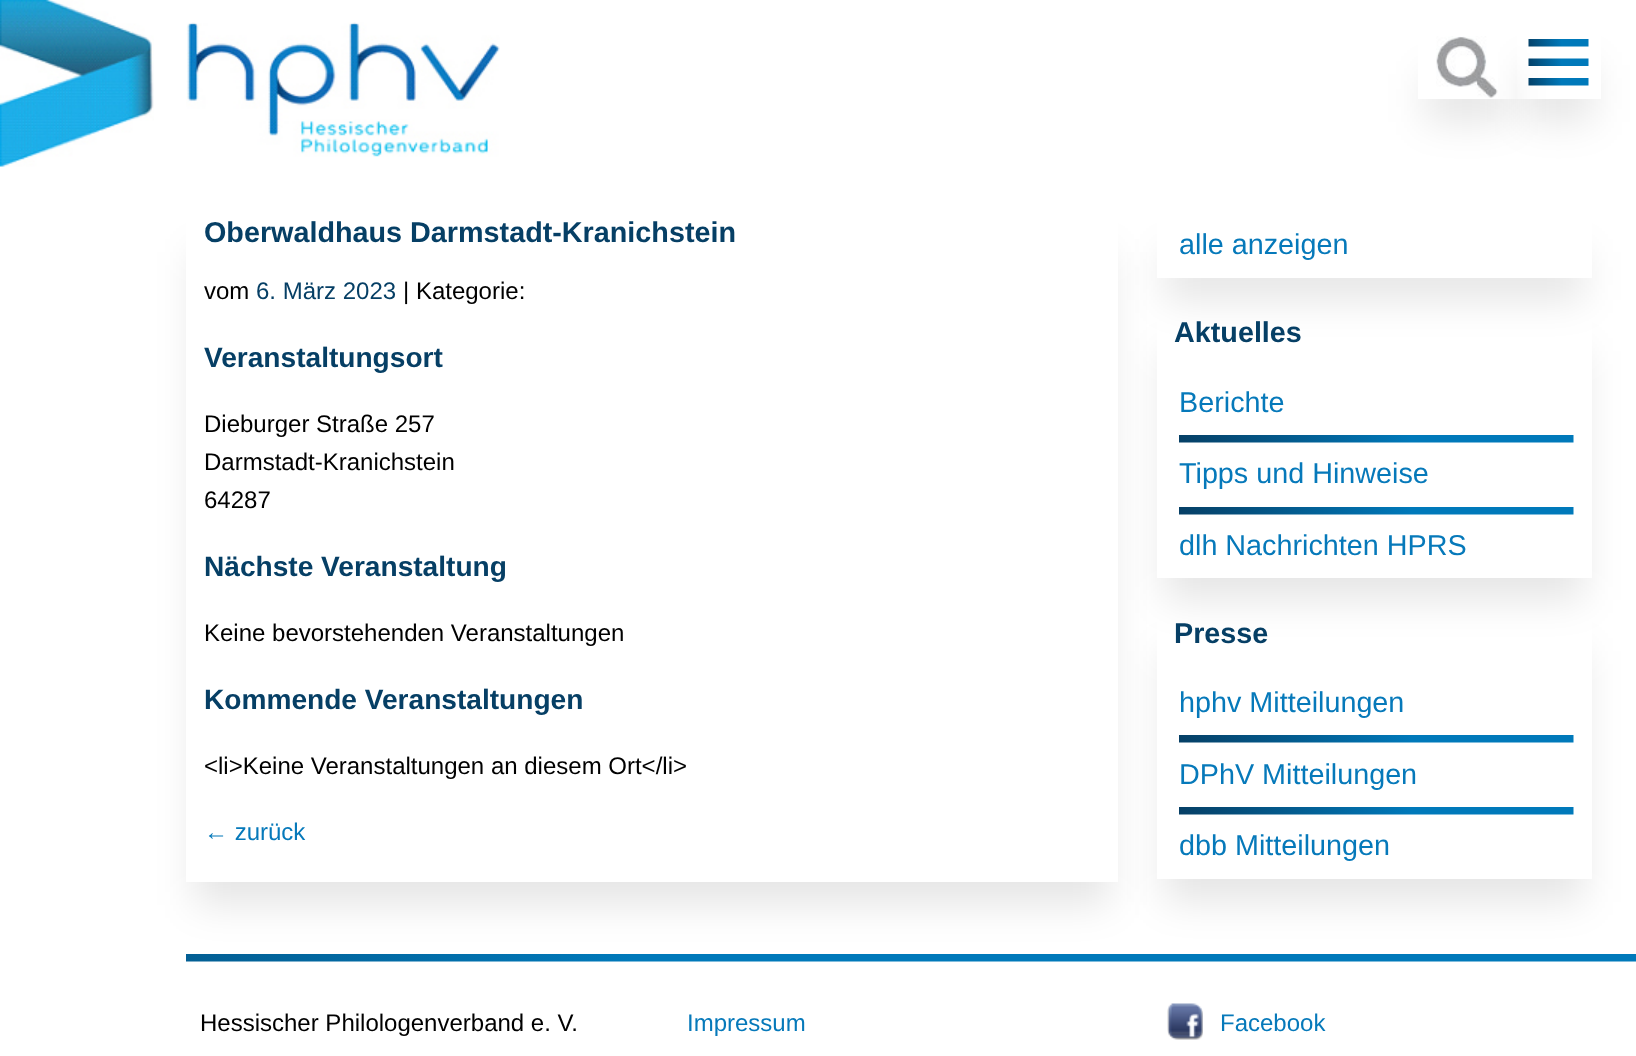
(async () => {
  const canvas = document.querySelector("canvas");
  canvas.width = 1636;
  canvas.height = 1056;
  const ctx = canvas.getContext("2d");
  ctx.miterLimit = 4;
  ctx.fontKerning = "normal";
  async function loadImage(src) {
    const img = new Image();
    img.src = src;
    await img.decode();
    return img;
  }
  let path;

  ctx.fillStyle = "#ffffff";
  ctx.fillRect(0, 0, 1636, 1056);
  ctx.drawImage(await loadImage("img/1.png"), 0, 0, 154, 167);
  ctx.save();
  path = new Path2D("M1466 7H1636V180H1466ZM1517 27H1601V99H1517Z");
  ctx.clip(path, "evenodd");
  ctx.fillStyle = "rgba(0, 0, 0, 0.1)";
  ctx.filter = "blur(19px)";
  ctx.beginPath();
  ctx.rect(1524, 65, 69, 57);
  ctx.fill();
  ctx.filter = "none";
  ctx.restore();
  ctx.drawImage(await loadImage("img/2.png"), 1528, 39, 61, 8);
  ctx.drawImage(await loadImage("img/3.png"), 1528, 58, 61, 8);
  ctx.drawImage(await loadImage("img/4.png"), 1528, 78, 61, 8);
  ctx.drawImage(await loadImage("img/5.png"), 186, 22, 314, 135);
  ctx.save();
  path = new Path2D("M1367 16H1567V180H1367ZM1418 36H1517V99H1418Z");
  ctx.clip(path, "evenodd");
  ctx.fillStyle = "rgba(0, 0, 0, 0.1)";
  ctx.filter = "blur(19px)";
  ctx.beginPath();
  ctx.rect(1425, 74, 84, 48);
  ctx.fill();
  ctx.filter = "none";
  ctx.restore();
  ctx.drawImage(await loadImage("img/6.png"), 1436, 36, 62, 62);
  ctx.save();
  path = new Path2D("M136 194H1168V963H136ZM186 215H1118V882H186Z");
  ctx.clip(path, "evenodd");
  ctx.fillStyle = "rgba(0, 0, 0, 0.1)";
  ctx.filter = "blur(19px)";
  ctx.beginPath();
  ctx.rect(194, 252, 916, 653);
  ctx.fill();
  ctx.filter = "none";
  ctx.restore();
  ctx.save();
  path = new Path2D("M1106 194H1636V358H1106ZM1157 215H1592V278H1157Z");
  ctx.clip(path, "evenodd");
  ctx.fillStyle = "rgba(0, 0, 0, 0.1)";
  ctx.filter = "blur(19px)";
  ctx.beginPath();
  ctx.rect(1164, 252, 420, 48);
  ctx.fill();
  ctx.filter = "none";
  ctx.restore();
  ctx.save();
  path = new Path2D("M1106 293H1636V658H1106ZM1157 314H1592V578H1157Z");
  ctx.clip(path, "evenodd");
  ctx.fillStyle = "rgba(0, 0, 0, 0.1)";
  ctx.filter = "blur(19px)";
  ctx.beginPath();
  ctx.rect(1164, 351, 420, 249);
  ctx.fill();
  ctx.filter = "none";
  ctx.restore();
  ctx.drawImage(await loadImage("img/7.png"), 1179, 435, 395, 8);
  ctx.drawImage(await loadImage("img/8.png"), 1179, 507, 395, 8);
  ctx.save();
  path = new Path2D("M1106 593H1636V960H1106ZM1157 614H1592V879H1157Z");
  ctx.clip(path, "evenodd");
  ctx.fillStyle = "rgba(0, 0, 0, 0.1)";
  ctx.filter = "blur(19px)";
  ctx.beginPath();
  ctx.rect(1164, 651, 420, 251);
  ctx.fill();
  ctx.filter = "none";
  ctx.restore();
  ctx.drawImage(await loadImage("img/9.png"), 1179, 735, 395, 8);
  ctx.drawImage(await loadImage("img/7.png"), 1179, 807, 395, 8);
  ctx.drawImage(await loadImage("img/10.png"), 186, 954, 1450, 8);
  ctx.drawImage(await loadImage("img/11.png"), 1167, 1003, 36, 37);
  ctx.font = "bold 28.75px Liberation Sans";
  ctx.fillStyle = "#063f65";
  ctx.fillText("Oberwaldhaus Darmstadt-Kranichstein", 204, 242);
  ctx.font = "24px Liberation Sans";
  ctx.fillStyle = "#000000";
  ctx.fillText("vom", 204, 299);
  ctx.fillStyle = "#063f65";
  ctx.fillText("6. März 2023", 256, 299);
  ctx.fillStyle = "#000000";
  ctx.fillText("| Kategorie:", 403, 299);
  ctx.font = "bold 28.1px Liberation Sans";
  ctx.fillStyle = "#063f65";
  ctx.fillText("Veranstaltungsort", 204, 367);
  ctx.font = "24px Liberation Sans";
  ctx.fillStyle = "#000000";
  for (const [text, x, y] of [
    ["Dieburger Straße 257", 204, 432],
    ["Darmstadt-Kranichstein", 204, 470],
    ["64287", 204, 508],
  ]) {
    ctx.fillText(text, x, y);
  }
  ctx.font = "bold 28.1px Liberation Sans";
  ctx.fillStyle = "#063f65";
  ctx.fillText("Nächste Veranstaltung", 204, 576);
  ctx.font = "24px Liberation Sans";
  ctx.fillStyle = "#000000";
  ctx.fillText("Keine bevorstehenden Veranstaltungen", 204, 641);
  ctx.font = "bold 28.1px Liberation Sans";
  ctx.fillStyle = "#063f65";
  ctx.fillText("Kommende Veranstaltungen", 204, 709);
  ctx.font = "24px Liberation Sans";
  ctx.fillStyle = "#000000";
  ctx.fillText("<li>Keine Veranstaltungen an diesem Ort<\/li>", 204, 774);
  ctx.fillStyle = "#0679ba";
  ctx.fillText("← zurück", 204, 840);
  ctx.font = "28.75px Liberation Sans";
  ctx.fillText("alle anzeigen", 1179, 254);
  ctx.font = "bold 28.75px Liberation Sans";
  ctx.fillStyle = "#063f65";
  ctx.fillText("Aktuelles", 1174, 342);
  ctx.font = "28.75px Liberation Sans";
  ctx.fillStyle = "#0679ba";
  for (const [text, x, y] of [
    ["Berichte", 1179, 412],
    ["Tipps und Hinweise", 1179, 483],
    ["dlh Nachrichten HPRS", 1179, 555],
  ]) {
    ctx.fillText(text, x, y);
  }
  ctx.font = "bold 28.75px Liberation Sans";
  ctx.fillStyle = "#063f65";
  ctx.fillText("Presse", 1174, 643);
  ctx.font = "28.75px Liberation Sans";
  ctx.fillStyle = "#0679ba";
  for (const [text, x, y] of [
    ["hphv Mitteilungen", 1179, 712],
    ["DPhV Mitteilungen", 1179, 784],
    ["dbb Mitteilungen", 1179, 855],
  ]) {
    ctx.fillText(text, x, y);
  }
  ctx.font = "24px Liberation Sans";
  ctx.fillStyle = "#000000";
  ctx.fillText("Hessischer Philologenverband e. V.", 200, 1031);
  ctx.fillStyle = "#0679ba";
  ctx.fillText("Impressum", 687, 1031);
  ctx.fillText("Facebook", 1220, 1031);
})();
